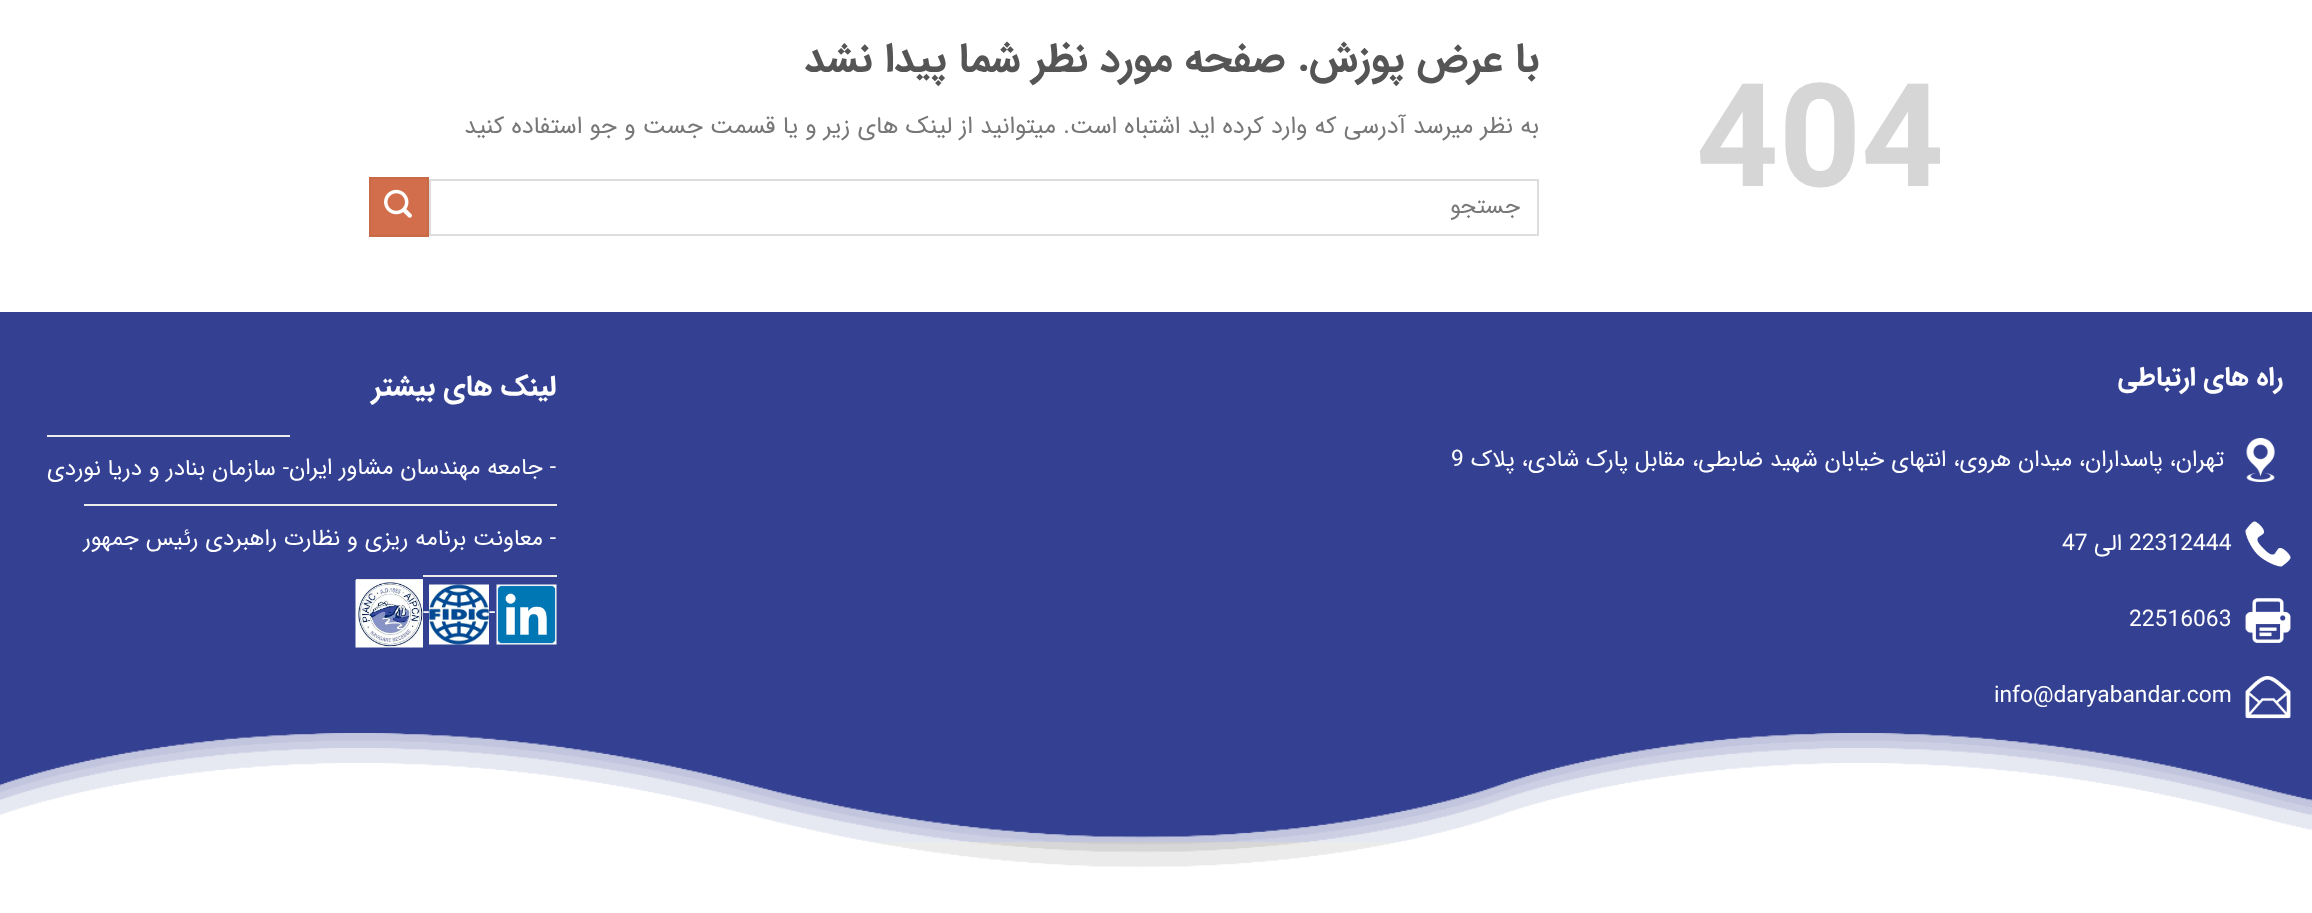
(async () => {
  const canvas = document.querySelector("canvas");
  canvas.width = 2312;
  canvas.height = 913;
  const ctx = canvas.getContext("2d");
  ctx.miterLimit = 4;
  ctx.fontKerning = "normal";
  async function loadImage(src) {
    const img = new Image();
    img.src = src;
    await img.decode();
    return img;
  }

  ctx.fillStyle = "#ffffff";
  ctx.fillRect(0, 0, 2312, 913);
  ctx.strokeStyle = "#dddddd";
  ctx.lineWidth = 2;
  ctx.strokeRect(430, 180, 1108, 55);
  ctx.fillStyle = "#d26e4b";
  ctx.beginPath();
  ctx.rect(370, 178, 58, 58);
  ctx.fill();
  ctx.strokeStyle = "#c86947";
  ctx.stroke();
  ctx.drawImage(await loadImage("img/1.png"), 384, 189, 28, 29);
  ctx.fillStyle = "#344193";
  ctx.fillRect(0, 312, 2312, 530);
  ctx.drawImage(await loadImage("img/2.png"), 2246, 437, 29, 45);
  ctx.drawImage(await loadImage("img/3.png"), 2245, 521, 46, 46);
  ctx.drawImage(await loadImage("img/4.png"), 2245, 598, 46, 45);
  ctx.drawImage(await loadImage("img/5.png"), 2245, 676, 46, 43);
  for (const [x, y, w, h, color] of [
    [47, 435, 243, 2, "#ececec"],
    [84, 504, 473, 2, "#ececec"],
    [423, 575, 134, 2, "#ececec"],
  ]) {
    ctx.fillStyle = color;
    ctx.fillRect(x, y, w, h);
  }
  ctx.drawImage(await loadImage("img/6.png"), 496, 584, 61, 61);
  ctx.drawImage(await loadImage("img/7.png"), 429, 584, 60, 61);
  ctx.fillRect(356, 579, 67, 1);
  ctx.drawImage(await loadImage("img/8.png"), 355, 580, 68, 68);
  ctx.fillStyle = "#5b5b5b";
  ctx.fillRect(866, 842, 537, 26);
  ctx.drawImage(await loadImage("img/9.png"), 0, 733, 2312, 135);
  ctx.drawImage(await loadImage("img/10.png"), 0, 740, 2312, 128);
  ctx.drawImage(await loadImage("img/11.png"), 0, 748, 2312, 120);
  ctx.drawImage(await loadImage("img/12.png"), 0, 763, 2312, 150);
  ctx.font = "bold 144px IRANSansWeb";
  ctx.fillStyle = "#d6d6d6";
  ctx.fillText("404", 1696, 186);
  ctx.direction = "rtl";
  ctx.font = "bold 40.75px IRANSansWeb";
  ctx.fillStyle = "#555555";
  ctx.fillText("با عرض پوزش. صفحه مورد نظر شما پیدا نشد", 1539, 71);
  ctx.font = "24px IRANSansWeb";
  ctx.fillStyle = "#777777";
  ctx.fillText("به نظر میرسد آدرسی که وارد کرده اید اشتباه است. میتوانید از لینک های زیر و یا قسمت جست و جو استفاده کنید", 1539, 133);
  ctx.font = "23px IRANSansWeb";
  ctx.fillText("جستجو", 1520, 213);
  ctx.font = "bold 26.5px IRANSansWeb";
  ctx.fillStyle = "#ffffff";
  ctx.fillText("راه های ارتباطی", 2283, 385);
  ctx.font = "22.8px IRANSansWeb";
  ctx.fillText("تهران، پاسداران، میدان هروی، انتهای خیابان شهید ضابطی، مقابل پارک شادی، پلاک", 2224, 466);
  ctx.direction = "ltr";
  ctx.fillText("9", 1451, 466);
  ctx.fillText("22312444", 2129, 550);
  ctx.direction = "rtl";
  ctx.fillText("الی", 2122, 550);
  ctx.direction = "ltr";
  for (const [text, x, y] of [
    ["47", 2062, 550],
    ["22516063", 2129, 626],
    ["info@daryabandar.com", 1994, 702],
  ]) {
    ctx.fillText(text, x, y);
  }
  ctx.direction = "rtl";
  ctx.font = "bold 28.5px IRANSansWeb";
  ctx.fillText("لینک های بیشتر", 556, 395);
  ctx.font = "22.8px IRANSansWeb";
  for (const [text, x, y] of [
    ["- جامعه مهندسان مشاور ایران", 556, 474],
    ["- سازمان بنادر و دریا نوردی", 289, 475],
    ["- معاونت برنامه ریزی و نظارت راهبردی رئیس جمهور", 556, 545],
  ]) {
    ctx.fillText(text, x, y);
  }
  ctx.direction = "ltr";
  ctx.fillText("-", 489, 619);
  ctx.fillText("-", 423, 619);
})();
